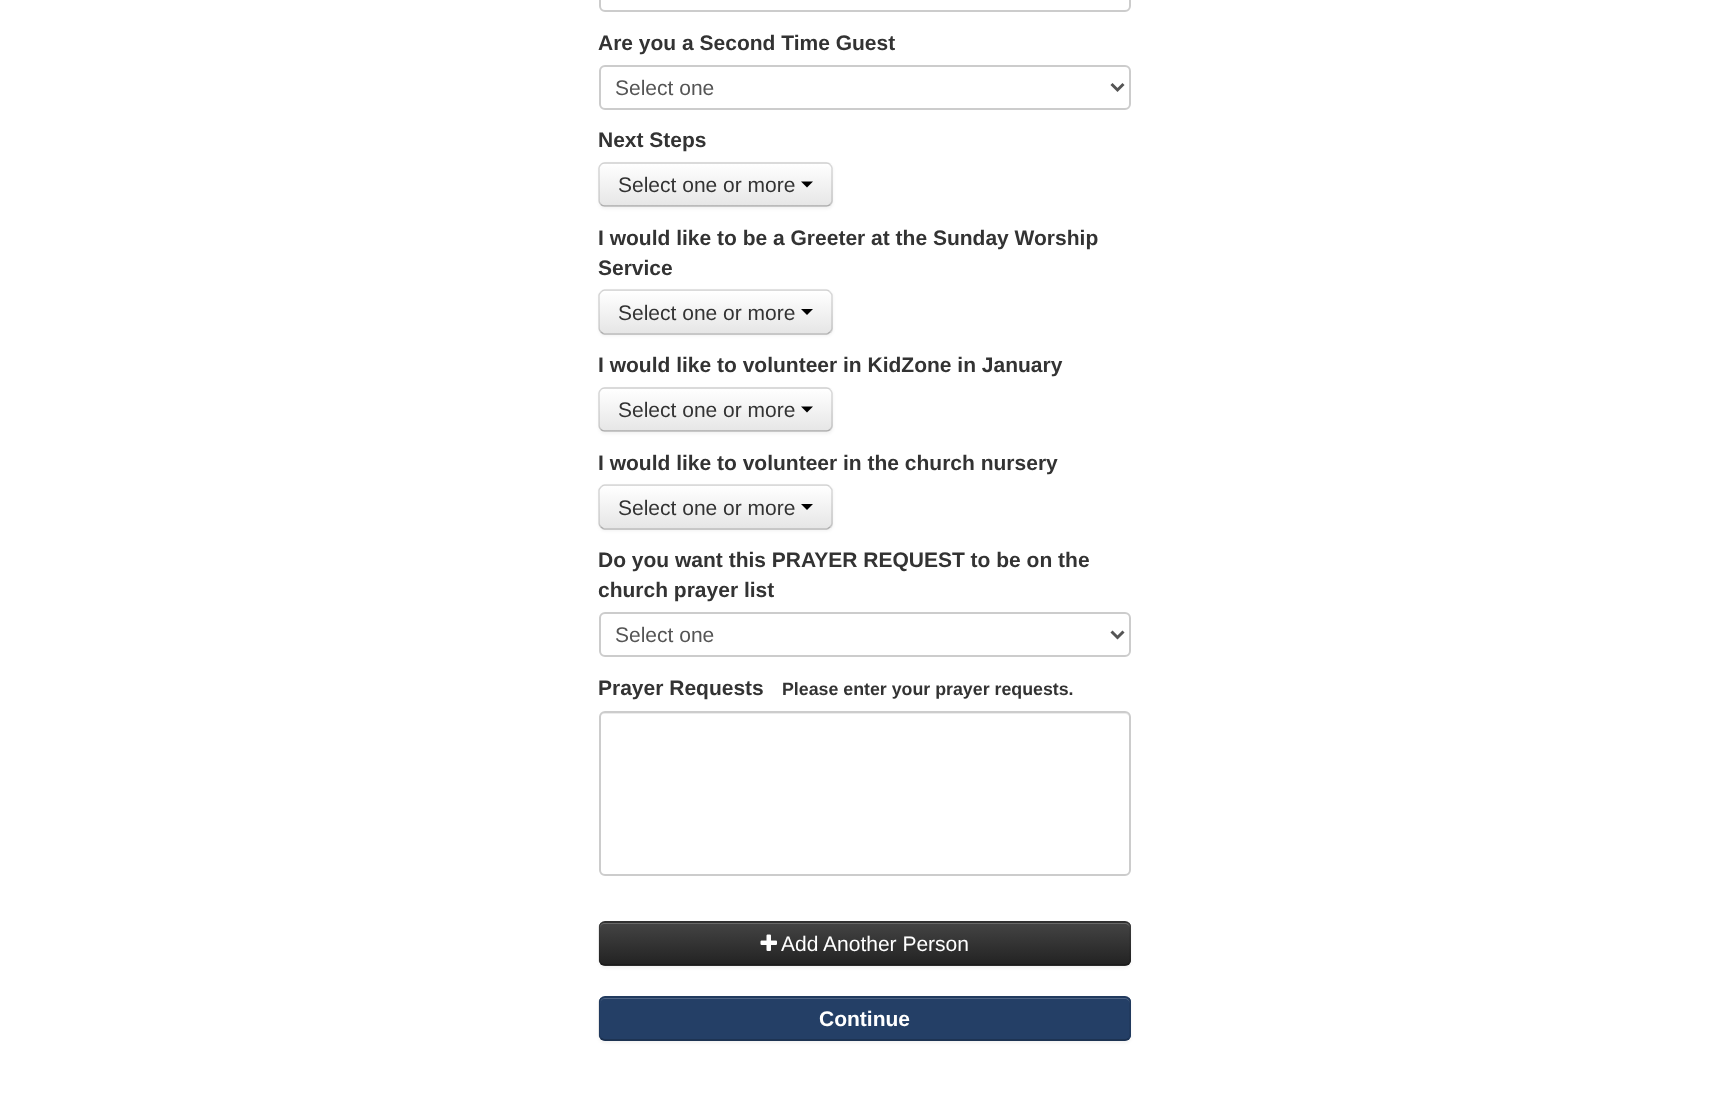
(async () => {
  const canvas = document.querySelector("canvas");
  canvas.width = 1729;
  canvas.height = 1101;
  const ctx = canvas.getContext("2d");
  ctx.miterLimit = 4;
  ctx.fontKerning = "normal";
  async function loadImage(src) {
    const img = new Image();
    img.src = src;
    await img.decode();
    return img;
  }
  let gradient, path;

  ctx.fillStyle = "#ffffff";
  ctx.fillRect(0, 0, 1729, 1101);
  ctx.beginPath();
  ctx.roundRect(600, -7, 530, 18, 5);
  ctx.strokeStyle = "#cccccc";
  ctx.lineWidth = 2;
  ctx.stroke();
  ctx.beginPath();
  ctx.roundRect(600, 66, 530, 43, 5);
  ctx.stroke();
  path = new Path2D("M1111.5 84L1117.5 90L1123.5 84");
  ctx.strokeStyle = "#555555";
  ctx.lineWidth = 3;
  ctx.stroke(path);
  ctx.fillStyle = "rgba(0, 0, 0, 0.05)";
  ctx.filter = "blur(1.5px)";
  ctx.beginPath();
  ctx.roundRect(599, 164, 234, 45, 6);
  ctx.fill();
  ctx.filter = "none";
  ctx.fillStyle = "#f5f5f5";
  ctx.beginPath();
  ctx.roundRect(599, 162, 234, 45, 6);
  ctx.fill();
  ctx.save();
  ctx.beginPath();
  ctx.roundRect(599, 162, 234, 45, 6);
  ctx.clip();
  gradient = ctx.createLinearGradient(716, 163, 716, 206);
  gradient.addColorStop(0, "#ffffff");
  gradient.addColorStop(1, "#e6e6e6");
  ctx.fillStyle = gradient;
  ctx.fillRect(599, 164, 234, 42);
  ctx.restore();
  path = new Path2D("M830 204.5C829 205.5 828 206 826.5 206H604.5C603 206 602 205.5 601 204.5");
  ctx.strokeStyle = "rgba(0, 0, 0, 0.25)";
  ctx.lineWidth = 1.5;
  ctx.stroke(path);
  path = new Path2D("M601 204.5C600 203.5 599 202.5 599 201V168C599 166.5 600 165.5 601 164.5C602 163.5 603 163 604.5 163H826.5C828 163 829 163.5 830 164.5C831 165.5 832 166.5 832 168V201C832 202.5 831 203.5 830 204.5");
  ctx.strokeStyle = "rgba(0, 0, 0, 0.15)";
  ctx.stroke(path);
  ctx.fillStyle = "#000000";
  path = new Path2D("M801 181.5H813L807 187.5Z");
  ctx.fill(path);
  ctx.fillStyle = "rgba(0, 0, 0, 0.05)";
  ctx.filter = "blur(1.5px)";
  ctx.beginPath();
  ctx.roundRect(599, 291, 234, 45, 6);
  ctx.fill();
  ctx.filter = "none";
  ctx.fillStyle = "#f5f5f5";
  ctx.beginPath();
  ctx.roundRect(599, 290, 234, 45, 6);
  ctx.fill();
  ctx.save();
  ctx.beginPath();
  ctx.roundRect(599, 290, 234, 45, 6);
  ctx.clip();
  gradient = ctx.createLinearGradient(716, 291, 716, 333);
  gradient.addColorStop(0, "#ffffff");
  gradient.addColorStop(1, "#e6e6e6");
  ctx.fillStyle = gradient;
  ctx.fillRect(599, 291, 234, 42);
  ctx.restore();
  path = new Path2D("M830 332C829 333 828 334 826.5 334H604.5C603 334 602 333 601 332");
  ctx.strokeStyle = "rgba(0, 0, 0, 0.25)";
  ctx.stroke(path);
  path = new Path2D("M601 332C600 331 599 330 599 328.5V295.5C599 294 600 293 601 292C602 291 603 290 604.5 290H826.5C828 290 829 291 830 292C831 293 832 294 832 295.5V328.5C832 330 831 331 830 332");
  ctx.strokeStyle = "rgba(0, 0, 0, 0.15)";
  ctx.stroke(path);
  ctx.fillStyle = "#000000";
  path = new Path2D("M801 309H813L807 315Z");
  ctx.fill(path);
  ctx.fillStyle = "rgba(0, 0, 0, 0.05)";
  ctx.filter = "blur(1.5px)";
  ctx.beginPath();
  ctx.roundRect(599, 389, 234, 45, 6);
  ctx.fill();
  ctx.filter = "none";
  ctx.fillStyle = "#f5f5f5";
  ctx.beginPath();
  ctx.roundRect(599, 387, 234, 45, 6);
  ctx.fill();
  ctx.save();
  ctx.beginPath();
  ctx.roundRect(599, 387, 234, 45, 6);
  ctx.clip();
  gradient = ctx.createLinearGradient(716, 389, 716, 431);
  gradient.addColorStop(0, "#ffffff");
  gradient.addColorStop(1, "#e6e6e6");
  ctx.fillStyle = gradient;
  ctx.fillRect(599, 389, 234, 42);
  ctx.restore();
  path = new Path2D("M830 429.5C829 430.5 828 431 826.5 431H604.5C603 431 602 430.5 601 429.5");
  ctx.strokeStyle = "rgba(0, 0, 0, 0.25)";
  ctx.stroke(path);
  path = new Path2D("M601 429.5C600 428.5 599 427.5 599 426V393C599 391.5 600 390.5 601 389.5C602 388.5 603 388 604.5 388H826.5C828 388 829 388.5 830 389.5C831 390.5 832 391.5 832 393V426C832 427.5 831 428.5 830 429.5");
  ctx.strokeStyle = "rgba(0, 0, 0, 0.15)";
  ctx.stroke(path);
  ctx.fillStyle = "#000000";
  path = new Path2D("M801 406.5H813L807 412.5Z");
  ctx.fill(path);
  ctx.fillStyle = "rgba(0, 0, 0, 0.05)";
  ctx.filter = "blur(1.5px)";
  ctx.beginPath();
  ctx.roundRect(599, 486, 234, 45, 6);
  ctx.fill();
  ctx.filter = "none";
  ctx.fillStyle = "#f5f5f5";
  ctx.beginPath();
  ctx.roundRect(599, 485, 234, 45, 6);
  ctx.fill();
  ctx.save();
  ctx.beginPath();
  ctx.roundRect(599, 485, 234, 45, 6);
  ctx.clip();
  gradient = ctx.createLinearGradient(716, 486, 716, 528);
  gradient.addColorStop(0, "#ffffff");
  gradient.addColorStop(1, "#e6e6e6");
  ctx.fillStyle = gradient;
  ctx.fillRect(599, 486, 234, 42);
  ctx.restore();
  path = new Path2D("M830 527C829 528 828 529 826.5 529H604.5C603 529 602 528 601 527");
  ctx.strokeStyle = "rgba(0, 0, 0, 0.25)";
  ctx.stroke(path);
  path = new Path2D("M601 527C600 526 599 525 599 523.5V490.5C599 489 600 488 601 487C602 486 603 485 604.5 485H826.5C828 485 829 486 830 487C831 488 832 489 832 490.5V523.5C832 525 831 526 830 527");
  ctx.strokeStyle = "rgba(0, 0, 0, 0.15)";
  ctx.stroke(path);
  ctx.fillStyle = "#000000";
  path = new Path2D("M801 504H813L807 510Z");
  ctx.fill(path);
  ctx.beginPath();
  ctx.roundRect(600, 613, 530, 43, 5);
  ctx.strokeStyle = "#cccccc";
  ctx.lineWidth = 2;
  ctx.stroke();
  path = new Path2D("M1111.5 631.5L1117.5 637.5L1123.5 631.5");
  ctx.strokeStyle = "#555555";
  ctx.lineWidth = 3;
  ctx.stroke(path);
  ctx.fillStyle = "#ececec";
  path = new Path2D("M604 714H1125C1127 714 1130 716 1130 718C1130 715 1128 713 1125 713H605C602 713 600 715 600 718C600 716 602 714 604 714Z");
  ctx.fill(path);
  ctx.beginPath();
  ctx.roundRect(600, 712, 530, 163, 5);
  ctx.strokeStyle = "#cccccc";
  ctx.lineWidth = 2;
  ctx.stroke();
  ctx.fillStyle = "rgba(0, 0, 0, 0.05)";
  ctx.filter = "blur(1.5px)";
  ctx.beginPath();
  ctx.roundRect(599, 923, 532, 45, 6);
  ctx.fill();
  ctx.filter = "none";
  ctx.fillStyle = "#363636";
  ctx.beginPath();
  ctx.roundRect(599, 921, 532, 45, 6);
  ctx.fill();
  ctx.save();
  ctx.beginPath();
  ctx.roundRect(599, 921, 532, 45, 6);
  ctx.clip();
  gradient = ctx.createLinearGradient(865, 923, 865, 965);
  gradient.addColorStop(0, "#444444");
  gradient.addColorStop(1, "#222222");
  ctx.fillStyle = gradient;
  ctx.fillRect(599, 923, 532, 42);
  ctx.restore();
  ctx.fillStyle = "#696969";
  path = new Path2D("M604 924H1125C1127 924 1130 926 1130 928C1130 925 1128 923 1125 923H605C602 923 600 925 600 928C600 926 602 924 604 924Z");
  ctx.fill(path);
  path = new Path2D("M1128.5 963.5C1127.5 964.5 1126.5 965 1125 965H604L601 963.5");
  ctx.strokeStyle = "rgba(0, 0, 0, 0.25)";
  ctx.lineWidth = 1.5;
  ctx.stroke(path);
  path = new Path2D("M601 963.5C600 962.5 599 961.5 599 960V927C599 925.5 600 924.5 601 923.5C602 922.5 603 922 604.5 922H1125C1126.5 922 1127.5 922.5 1128.5 923.5C1129.5 924.5 1130 925.5 1130 927V960C1130 961.5 1129.5 962.5 1128.5 963.5");
  ctx.strokeStyle = "rgba(0, 0, 0, 0.1)";
  ctx.stroke(path);
  ctx.drawImage(await loadImage("img/1.png"), 760, 934, 17, 17);
  ctx.fillStyle = "rgba(0, 0, 0, 0.05)";
  ctx.filter = "blur(1.5px)";
  ctx.beginPath();
  ctx.roundRect(599, 998, 532, 45, 6);
  ctx.fill();
  ctx.filter = "none";
  ctx.fillStyle = "#243f66";
  ctx.beginPath();
  ctx.roundRect(599, 996, 532, 45, 6);
  ctx.fill();
  ctx.save();
  ctx.beginPath();
  ctx.roundRect(599, 996, 532, 45, 6);
  ctx.clip();
  ctx.fillRect(599, 998, 532, 42);
  ctx.restore();
  ctx.fillStyle = "#506585";
  path = new Path2D("M604 999H1125C1127 999 1130 1001 1130 1004C1130 1001 1128 998 1125 998H605C603 998 602 999 601 1000L600 1004C600 1001 602 999 604 999Z");
  ctx.fill(path);
  path = new Path2D("M1128.5 1038.5C1127.5 1039.5 1126.5 1040 1125 1040H604L601 1038.5");
  ctx.strokeStyle = "rgba(0, 0, 0, 0.25)";
  ctx.stroke(path);
  path = new Path2D("M601 1038.5C600 1037.5 599 1036.5 599 1035V1002C599 1000.5 600 999.5 601 998.5C602 997.5 603 997 604.5 997H1125C1126.5 997 1127.5 997.5 1128.5 998.5C1129.5 999.5 1130 1000.5 1130 1002V1035C1130 1036.5 1129.5 1037.5 1128.5 1038.5");
  ctx.strokeStyle = "rgba(0, 0, 0, 0.1)";
  ctx.stroke(path);
  ctx.font = "bold 21px Liberation Sans";
  ctx.fillStyle = "#333333";
  ctx.fillText("Are you a Second Time Guest", 598, 50);
  ctx.font = "21px Liberation Sans";
  ctx.fillStyle = "#555555";
  ctx.fillText("Select one", 615, 95);
  ctx.font = "bold 21px Liberation Sans";
  ctx.fillStyle = "#333333";
  ctx.fillText("Next Steps", 598, 147);
  ctx.font = "21px Liberation Sans";
  ctx.fillText("Select one or more", 618, 192);
  ctx.font = "bold 21px Liberation Sans";
  ctx.fillText("I would like to be a Greeter at the Sunday Worship", 598, 245);
  ctx.fillText("Service", 598, 275);
  ctx.font = "21px Liberation Sans";
  ctx.fillText("Select one or more", 618, 320);
  ctx.font = "bold 21px Liberation Sans";
  ctx.fillText("I would like to volunteer in KidZone in January", 598, 372);
  ctx.font = "21px Liberation Sans";
  ctx.fillText("Select one or more", 618, 417);
  ctx.font = "bold 21px Liberation Sans";
  ctx.fillText("I would like to volunteer in the church nursery", 598, 470);
  ctx.font = "21px Liberation Sans";
  ctx.fillText("Select one or more", 618, 515);
  ctx.font = "bold 21px Liberation Sans";
  ctx.fillText("Do you want this PRAYER REQUEST to be on the", 598, 567);
  ctx.fillText("church prayer list", 598, 597);
  ctx.font = "21px Liberation Sans";
  ctx.fillStyle = "#555555";
  ctx.fillText("Select one", 615, 642);
  ctx.font = "bold 21px Liberation Sans";
  ctx.fillStyle = "#333333";
  ctx.fillText("Prayer Requests", 598, 695);
  ctx.font = "bold 17.8px Liberation Sans";
  ctx.fillText("Please enter your prayer requests.", 782, 695);
  ctx.font = "21px Liberation Sans";
  ctx.fillStyle = "#ffffff";
  ctx.fillText("Add Another Person", 781, 951);
  ctx.font = "bold 21px Liberation Sans";
  ctx.fillText("Continue", 819, 1026);
})();
